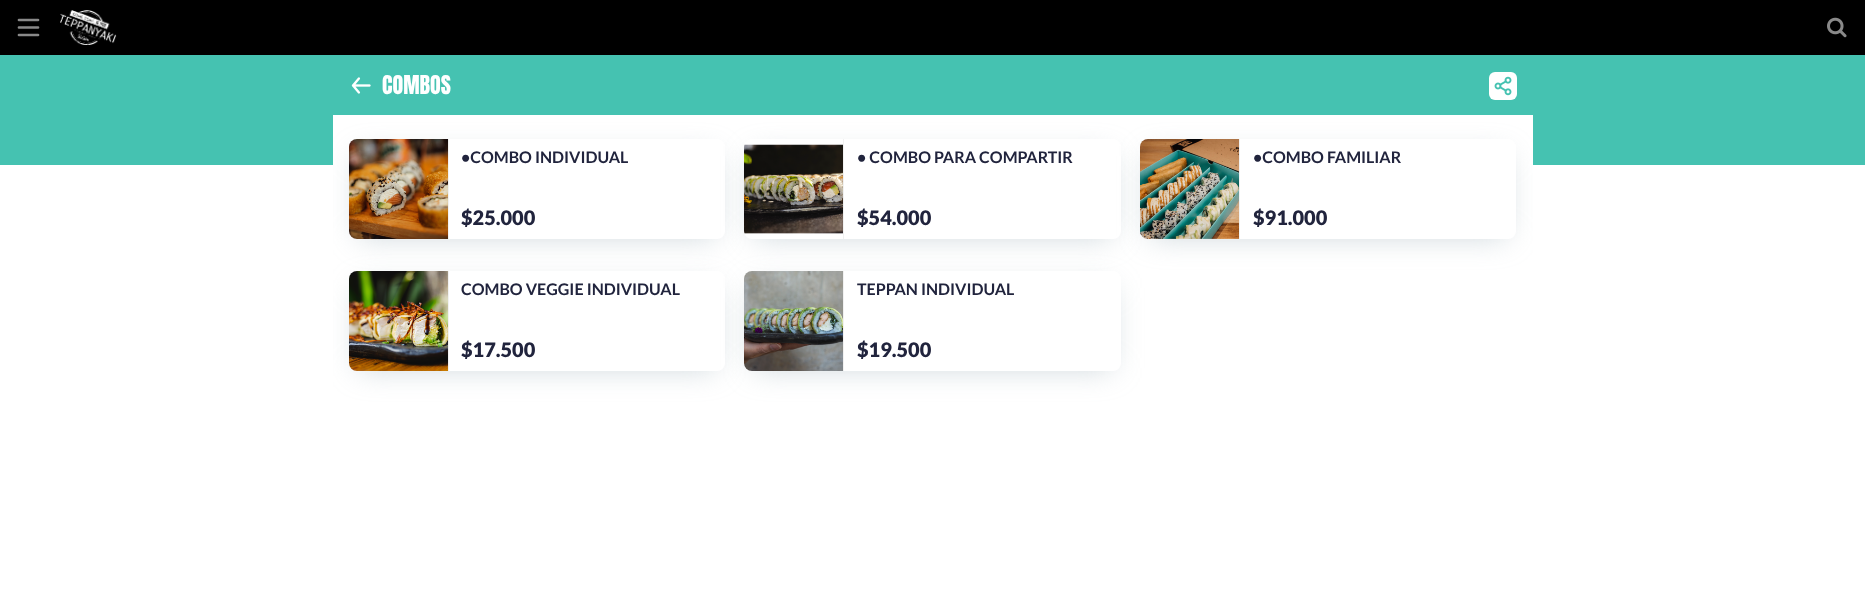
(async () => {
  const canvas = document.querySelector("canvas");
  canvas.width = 1865;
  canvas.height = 607;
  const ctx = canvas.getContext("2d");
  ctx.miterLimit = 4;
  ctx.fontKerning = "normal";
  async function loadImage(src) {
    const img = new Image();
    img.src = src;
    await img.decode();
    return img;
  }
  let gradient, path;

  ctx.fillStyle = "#000000";
  ctx.fillRect(0, 0, 1865, 607);
  path = new Path2D("M19 20H38M19 35H38ZM19 27.5H38Z");
  ctx.strokeStyle = "#898989";
  ctx.lineWidth = 2.7;
  ctx.lineCap = "round";
  ctx.lineJoin = "round";
  ctx.stroke(path);
  ctx.drawImage(await loadImage("img/1.png"), 60, 10, 57, 35);
  ctx.drawImage(await loadImage("img/2.png"), 1827, 17, 20, 21);
  gradient = ctx.createLinearGradient(933, 55, 933, 607);
  gradient.addColorStop(0.2, "#45c2b1");
  gradient.addColorStop(0.2, "#ffffff");
  gradient.addColorStop(1, "#ffffff");
  ctx.fillStyle = gradient;
  ctx.fillRect(0, 55, 1865, 552);
  ctx.drawImage(await loadImage("img/3.png"), 351, 77, 20, 17);
  ctx.fillStyle = "#ffffff";
  ctx.beginPath();
  ctx.roundRect(1489, 72, 28, 28, 6);
  ctx.fill();
  ctx.drawImage(await loadImage("img/4.png"), 1494, 76, 18, 20);
  ctx.fillRect(333, 115, 1200, 50);
  ctx.save();
  ctx.beginPath();
  ctx.rect(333, 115, 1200, 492);
  ctx.clip();
  ctx.fillStyle = "rgba(150, 170, 180, 0.5)";
  ctx.filter = "blur(15px)";
  ctx.beginPath();
  ctx.rect(359, 156, 356, 80);
  ctx.fill();
  ctx.filter = "none";
  ctx.restore();
  ctx.beginPath();
  ctx.roundRect(349, 139, 376, 100, 8);
  ctx.fill();
  ctx.fillStyle = "#f1f1f1";
  ctx.fillRect(448, 139, 1, 100);
  ctx.drawImage(await loadImage("img/5.png"), 349, 139, 99, 100);
  ctx.fillStyle = "rgba(150, 170, 180, 0.5)";
  ctx.filter = "blur(15px)";
  ctx.beginPath();
  ctx.rect(754, 156, 357, 80);
  ctx.fill();
  ctx.filter = "none";
  ctx.fillStyle = "#ffffff";
  ctx.beginPath();
  ctx.roundRect(744, 139, 377, 100, 8);
  ctx.fill();
  ctx.fillStyle = "#f1f1f1";
  ctx.fillRect(843, 139, 1, 100);
  ctx.drawImage(await loadImage("img/6.png"), 744, 144, 99, 90);
  ctx.save();
  ctx.beginPath();
  ctx.rect(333, 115, 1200, 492);
  ctx.clip();
  ctx.fillStyle = "rgba(150, 170, 180, 0.5)";
  ctx.filter = "blur(15px)";
  ctx.beginPath();
  ctx.rect(1150, 156, 356, 80);
  ctx.fill();
  ctx.filter = "none";
  ctx.restore();
  ctx.fillStyle = "#ffffff";
  ctx.beginPath();
  ctx.roundRect(1140, 139, 376, 100, 8);
  ctx.fill();
  ctx.fillStyle = "#f1f1f1";
  ctx.fillRect(1239, 139, 1, 100);
  ctx.drawImage(await loadImage("img/7.png"), 1140, 139, 99, 100);
  ctx.save();
  ctx.beginPath();
  ctx.rect(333, 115, 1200, 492);
  ctx.clip();
  ctx.fillStyle = "rgba(150, 170, 180, 0.5)";
  ctx.filter = "blur(15px)";
  ctx.beginPath();
  ctx.rect(359, 288, 356, 80);
  ctx.fill();
  ctx.filter = "none";
  ctx.restore();
  ctx.fillStyle = "#ffffff";
  ctx.beginPath();
  ctx.roundRect(349, 271, 376, 100, 8);
  ctx.fill();
  ctx.fillStyle = "#f1f1f1";
  ctx.fillRect(448, 271, 1, 100);
  ctx.drawImage(await loadImage("img/8.png"), 349, 271, 99, 100);
  ctx.fillStyle = "rgba(150, 170, 180, 0.5)";
  ctx.filter = "blur(15px)";
  ctx.beginPath();
  ctx.rect(754, 288, 357, 80);
  ctx.fill();
  ctx.filter = "none";
  ctx.fillStyle = "#ffffff";
  ctx.beginPath();
  ctx.roundRect(744, 271, 377, 100, 8);
  ctx.fill();
  ctx.fillStyle = "#f1f1f1";
  ctx.fillRect(843, 271, 1, 100);
  ctx.drawImage(await loadImage("img/9.png"), 744, 271, 99, 100);
  ctx.font = "22px Anton";
  ctx.fillStyle = "#ffffff";
  ctx.fillText("COMBOS", 382, 94);
  ctx.font = "bold 16px Lato";
  ctx.fillStyle = "#21243d";
  ctx.fillText("•COMBO INDIVIDUAL", 461, 163);
  ctx.font = "900 20px Lato";
  ctx.fillText("$25.000", 461, 225);
  ctx.font = "bold 16px Lato";
  ctx.fillText("• COMBO PARA COMPARTIR", 857, 163);
  ctx.font = "900 20px Lato";
  ctx.fillText("$54.000", 857, 225);
  ctx.font = "bold 16px Lato";
  ctx.fillText("•COMBO FAMILIAR", 1253, 163);
  ctx.font = "900 20px Lato";
  ctx.fillText("$91.000", 1253, 225);
  ctx.font = "bold 16px Lato";
  ctx.fillText("COMBO VEGGIE INDIVIDUAL", 461, 295);
  ctx.font = "900 20px Lato";
  ctx.fillText("$17.500", 461, 357);
  ctx.font = "bold 16px Lato";
  ctx.fillText("TEPPAN INDIVIDUAL", 857, 295);
  ctx.font = "900 20px Lato";
  ctx.fillText("$19.500", 857, 357);
})();
